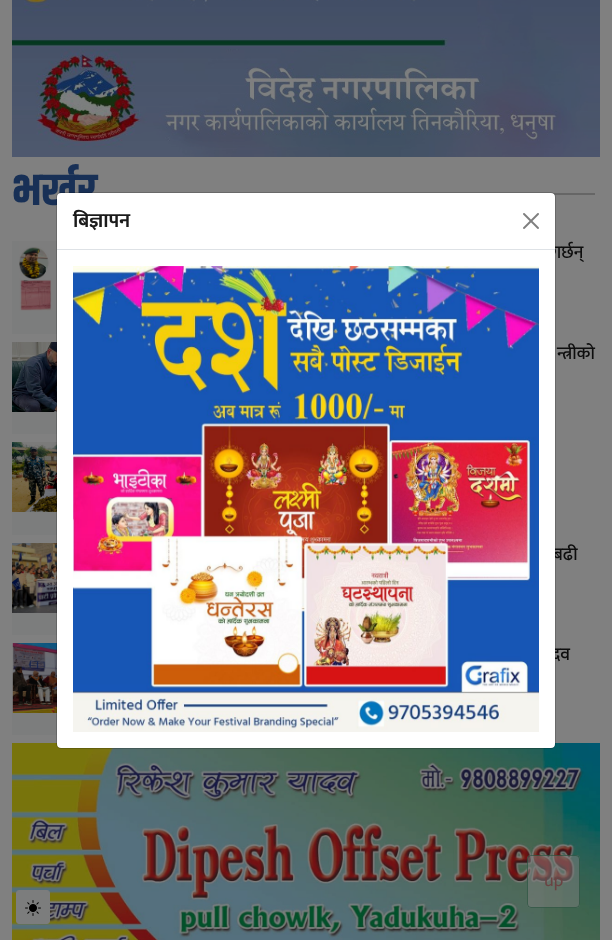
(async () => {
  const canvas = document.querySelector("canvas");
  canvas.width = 612;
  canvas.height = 940;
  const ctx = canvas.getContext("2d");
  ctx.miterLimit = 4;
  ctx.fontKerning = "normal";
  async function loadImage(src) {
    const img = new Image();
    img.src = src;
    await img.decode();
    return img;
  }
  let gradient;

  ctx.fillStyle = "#808080";
  ctx.fillRect(0, 0, 612, 940);
  ctx.drawImage(await loadImage("img/1.png"), 12, 0, 588, 157);
  ctx.fillStyle = "#666666";
  ctx.fillRect(551, 193, 44, 2);
  gradient = ctx.createLinearGradient(345, 288, -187, 288);
  gradient.addColorStop(0, "#7c7d7d");
  gradient.addColorStop(0.15, "#676a6d");
  gradient.addColorStop(0.4, "#7c7d7d");
  gradient.addColorStop(1, "#7c7d7d");
  ctx.fillStyle = gradient;
  ctx.fillRect(12, 241, 45, 93);
  ctx.drawImage(await loadImage("img/2.png"), 19, 241, 38, 70);
  gradient = ctx.createLinearGradient(345, 388, -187, 388);
  gradient.addColorStop(0, "#7c7d7d");
  gradient.addColorStop(0.15, "#676a6d");
  gradient.addColorStop(0.4, "#7c7d7d");
  gradient.addColorStop(1, "#7c7d7d");
  ctx.fillStyle = gradient;
  ctx.fillRect(12, 412, 45, 22);
  ctx.drawImage(await loadImage("img/3.png"), 12, 342, 45, 70);
  gradient = ctx.createLinearGradient(345, 489, -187, 489);
  gradient.addColorStop(0, "#7c7d7d");
  gradient.addColorStop(0.15, "#676a6d");
  gradient.addColorStop(0.4, "#7c7d7d");
  gradient.addColorStop(1, "#7c7d7d");
  ctx.fillStyle = gradient;
  ctx.fillRect(12, 512, 45, 23);
  ctx.drawImage(await loadImage("img/4.png"), 12, 442, 45, 70);
  gradient = ctx.createLinearGradient(345, 589, -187, 589);
  gradient.addColorStop(0, "#7c7d7d");
  gradient.addColorStop(0.15, "#676a6d");
  gradient.addColorStop(0.4, "#7c7d7d");
  gradient.addColorStop(1, "#7c7d7d");
  ctx.fillStyle = gradient;
  ctx.fillRect(12, 613, 45, 22);
  ctx.drawImage(await loadImage("img/5.png"), 12, 543, 45, 70);
  gradient = ctx.createLinearGradient(345, 689, -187, 689);
  gradient.addColorStop(0, "#7c7d7d");
  gradient.addColorStop(0.15, "#676a6d");
  gradient.addColorStop(0.4, "#7c7d7d");
  gradient.addColorStop(1, "#7c7d7d");
  ctx.fillStyle = gradient;
  ctx.fillRect(12, 713, 45, 22);
  ctx.drawImage(await loadImage("img/6.png"), 12, 643, 45, 70);
  ctx.drawImage(await loadImage("img/7.png"), 12, 743, 588, 197);
  ctx.fillStyle = "rgba(128, 128, 128, 0.5)";
  ctx.beginPath();
  ctx.roundRect(527, 855, 53, 53, 4);
  ctx.fill();
  ctx.beginPath();
  ctx.roundRect(527.5, 855.5, 52, 52, 3.5);
  ctx.strokeStyle = "rgba(13, 68, 42, 0.5)";
  ctx.stroke();
  ctx.fillStyle = "#7c7d7d";
  ctx.beginPath();
  ctx.roundRect(16.5, 890.5, 33, 33, 2.5);
  ctx.fill();
  ctx.strokeStyle = "#7c7d7d";
  ctx.stroke();
  ctx.drawImage(await loadImage("img/10.png"), 25, 900, 16, 16);
  ctx.font = "bold 45px Khand";
  ctx.fillStyle = "#183056";
  ctx.fillText("भर्खर", 12, 205);
  ctx.font = "500 18px Mukta";
  ctx.fillStyle = "#0e0e0e";
  for (const [text, x, y] of [
    ["गर्छन्", 551, 258],
    ["न्त्रीको", 557, 359],
    ["बढी", 553, 560],
    ["दव", 551, 660],
  ]) {
    ctx.fillText(text, x, y);
  }
  ctx.fillStyle = "#ffffff";
  ctx.beginPath();
  ctx.roundRect(57, 193, 498, 555, 4);
  ctx.fill();
  ctx.beginPath();
  ctx.roundRect(56.5, 192.5, 499, 556, 4.5);
  ctx.strokeStyle = "rgba(0, 0, 0, 0.18)";
  ctx.stroke();
  ctx.fillStyle = "#dee2e6";
  ctx.fillRect(57, 249, 498, 1);
  ctx.font = "bold 20px Mukta";
  ctx.fillStyle = "#1b1b1b";
  ctx.fillText("बिज्ञापन", 73, 227);
  ctx.drawImage(await loadImage("img/8.png"), 523, 213, 16, 16);
  ctx.drawImage(await loadImage("img/9.png"), 73, 266, 466, 466);
  ctx.font = "18px Mukta";
  ctx.fillStyle = "#6a4343";
  ctx.fillText("up", 544, 886);
})();
